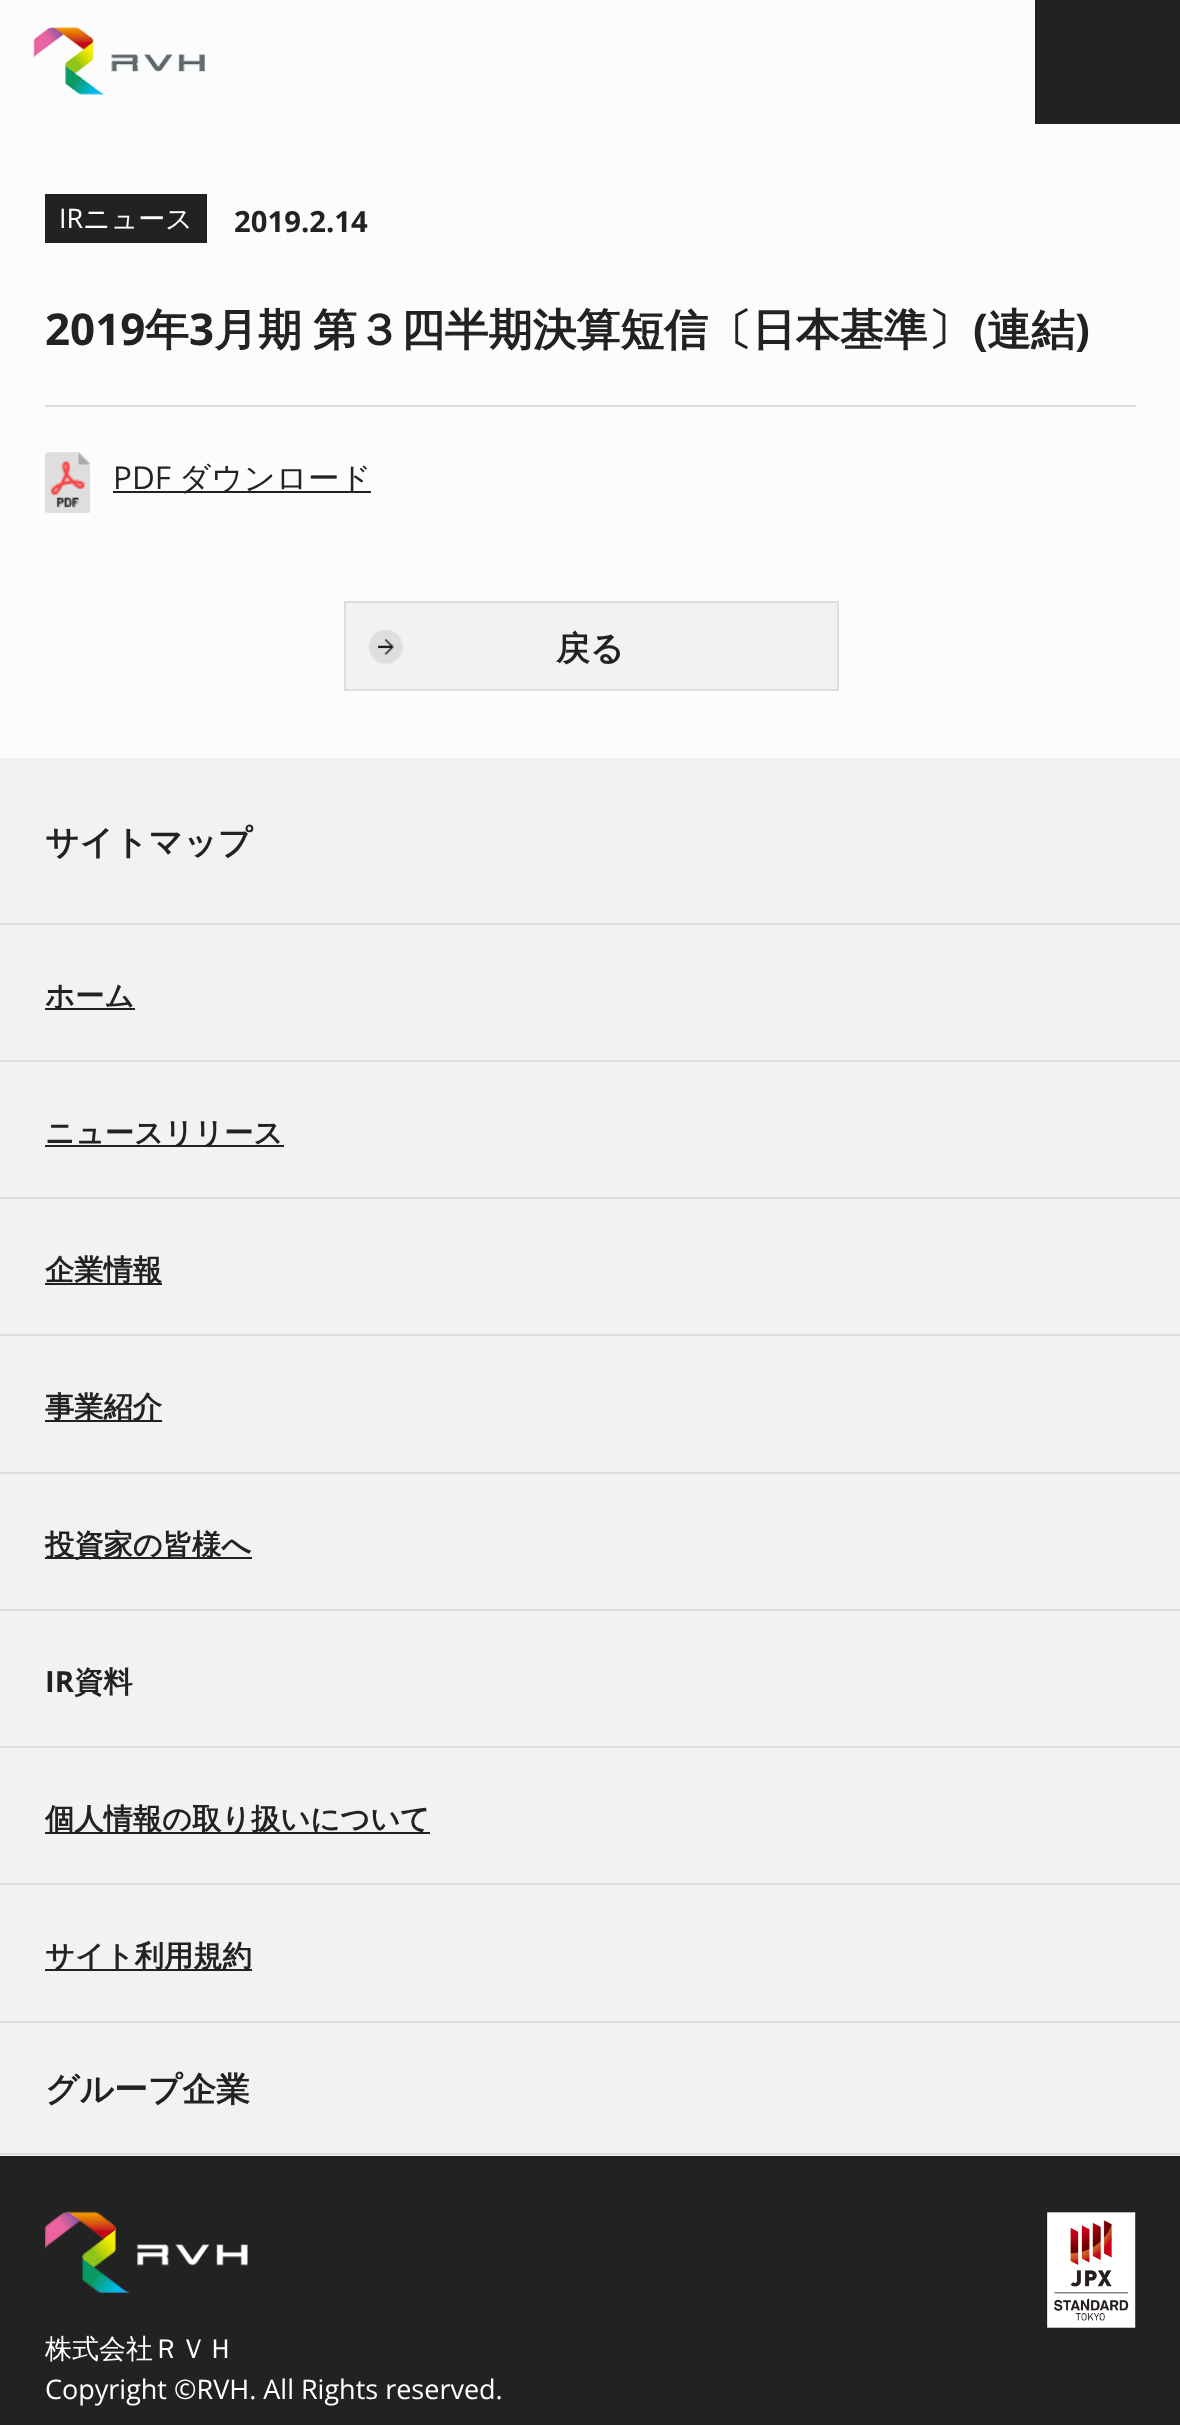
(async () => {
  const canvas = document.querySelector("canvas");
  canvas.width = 1180;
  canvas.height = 2425;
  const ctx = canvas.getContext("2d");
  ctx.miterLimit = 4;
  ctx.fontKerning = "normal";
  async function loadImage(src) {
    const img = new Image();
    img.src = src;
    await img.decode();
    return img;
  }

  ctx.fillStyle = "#fcfcfc";
  ctx.fillRect(0, 0, 1180, 2425);
  ctx.drawImage(await loadImage("img/1.png"), 33, 27, 172, 68);
  for (const [x, y, w, h, color] of [
    [1035, 0, 145, 124, "#222222"],
    [45, 194, 162, 49, "#222222"],
    [45, 405, 1091, 2, "#dddddd"],
  ]) {
    ctx.fillStyle = color;
    ctx.fillRect(x, y, w, h);
  }
  ctx.drawImage(await loadImage("img/2.png"), 45, 452, 45, 61);
  ctx.fillStyle = "#222222";
  ctx.fillRect(113, 491, 258, 2);
  ctx.fillStyle = "#f2f2f2";
  ctx.fillRect(346, 603, 491, 86);
  ctx.drawImage(await loadImage("img/3.png"), 369, 630, 34, 34);
  ctx.strokeStyle = "#dddddd";
  ctx.lineWidth = 2;
  ctx.strokeRect(345, 602, 493, 88);
  for (const [x, y, w, h, color] of [
    [0, 758, 1180, 1398, "#f2f2f2"],
    [0, 923, 1180, 2, "#dddddd"],
    [0, 1060, 1180, 2, "#dddddd"],
    [45, 1008, 90, 2, "#222222"],
    [0, 1197, 1180, 2, "#dddddd"],
    [45, 1145, 239, 2, "#222222"],
    [0, 1334, 1180, 2, "#dddddd"],
    [45, 1283, 117, 2, "#222222"],
    [0, 1472, 1180, 2, "#dddddd"],
    [45, 1420, 117, 2, "#222222"],
    [0, 1609, 1180, 2, "#dddddd"],
    [45, 1557, 207, 2, "#222222"],
    [0, 1746, 1180, 2, "#dddddd"],
    [0, 1883, 1180, 2, "#dddddd"],
    [45, 1832, 385, 2, "#222222"],
    [0, 2021, 1180, 2, "#dddddd"],
    [45, 1969, 207, 2, "#222222"],
    [0, 2153, 1180, 2, "#dddddd"],
    [0, 2156, 1180, 269, "#222222"],
  ]) {
    ctx.fillStyle = color;
    ctx.fillRect(x, y, w, h);
  }
  ctx.drawImage(await loadImage("img/4.png"), 45, 2211, 203, 82);
  ctx.drawImage(await loadImage("img/5.png"), 1046, 2212, 90, 117);
  ctx.font = "27px Open Sans";
  ctx.fillStyle = "#ffffff";
  ctx.fillText("IR", 59, 228);
  ctx.font = "500 27px WenQuanYi Zen Hei";
  ctx.fillText("ニュース", 83, 228);
  ctx.font = "bold 29.25px Open Sans";
  ctx.fillStyle = "#222222";
  ctx.fillText("2019.2.14", 234, 232);
  ctx.font = "bold 43.9px Open Sans";
  ctx.fillText("2019", 45, 345);
  ctx.font = "bold 43.9px WenQuanYi Zen Hei";
  ctx.fillText("年", 145, 345);
  ctx.font = "bold 43.9px Open Sans";
  ctx.fillText("3", 189, 345);
  ctx.wordSpacing = "-2px";
  ctx.font = "bold 43.9px WenQuanYi Zen Hei";
  ctx.fillText("月期 第３四半期決算短信〔日本基準〕", 214, 345);
  ctx.wordSpacing = "0px";
  ctx.font = "bold 43.9px Open Sans";
  ctx.fillText("(", 973, 345);
  ctx.font = "bold 43.9px WenQuanYi Zen Hei";
  ctx.fillText("連結", 987, 345);
  ctx.font = "bold 43.9px Open Sans";
  ctx.fillText(")", 1075, 345);
  ctx.font = "31.5px Open Sans";
  ctx.fillText("PDF", 113, 489);
  ctx.font = "500 31.5px WenQuanYi Zen Hei";
  ctx.fillText("ダウンロード", 179, 489);
  ctx.font = "bold 33.75px WenQuanYi Zen Hei";
  ctx.fillText("戻る", 556, 660);
  ctx.fillText("サイトマップ", 45, 854);
  ctx.font = "bold 29.25px WenQuanYi Zen Hei";
  for (const [text, x, y] of [
    ["ホーム", 45, 1006],
    ["ニュースリリース", 45, 1143],
    ["企業情報", 45, 1280],
    ["事業紹介", 45, 1417],
    ["投資家の皆様へ", 45, 1555],
  ]) {
    ctx.fillText(text, x, y);
  }
  ctx.font = "bold 29.25px Open Sans";
  ctx.fillText("IR", 45, 1692);
  ctx.font = "bold 29.25px WenQuanYi Zen Hei";
  for (const [text, x, y] of [
    ["資料", 74, 1692],
    ["個人情報の取り扱いについて", 45, 1829],
    ["サイト利用規約", 45, 1966],
  ]) {
    ctx.fillText(text, x, y);
  }
  ctx.font = "bold 33.75px WenQuanYi Zen Hei";
  ctx.fillText("グループ企業", 45, 2101);
  ctx.font = "500 27px WenQuanYi Zen Hei";
  ctx.fillStyle = "#ffffff";
  ctx.fillText("株式会社ＲＶＨ", 45, 2358);
  ctx.font = "27px Open Sans";
  ctx.fillText("Copyright ©RVH. All Rights reserved.", 45, 2399);
})();
